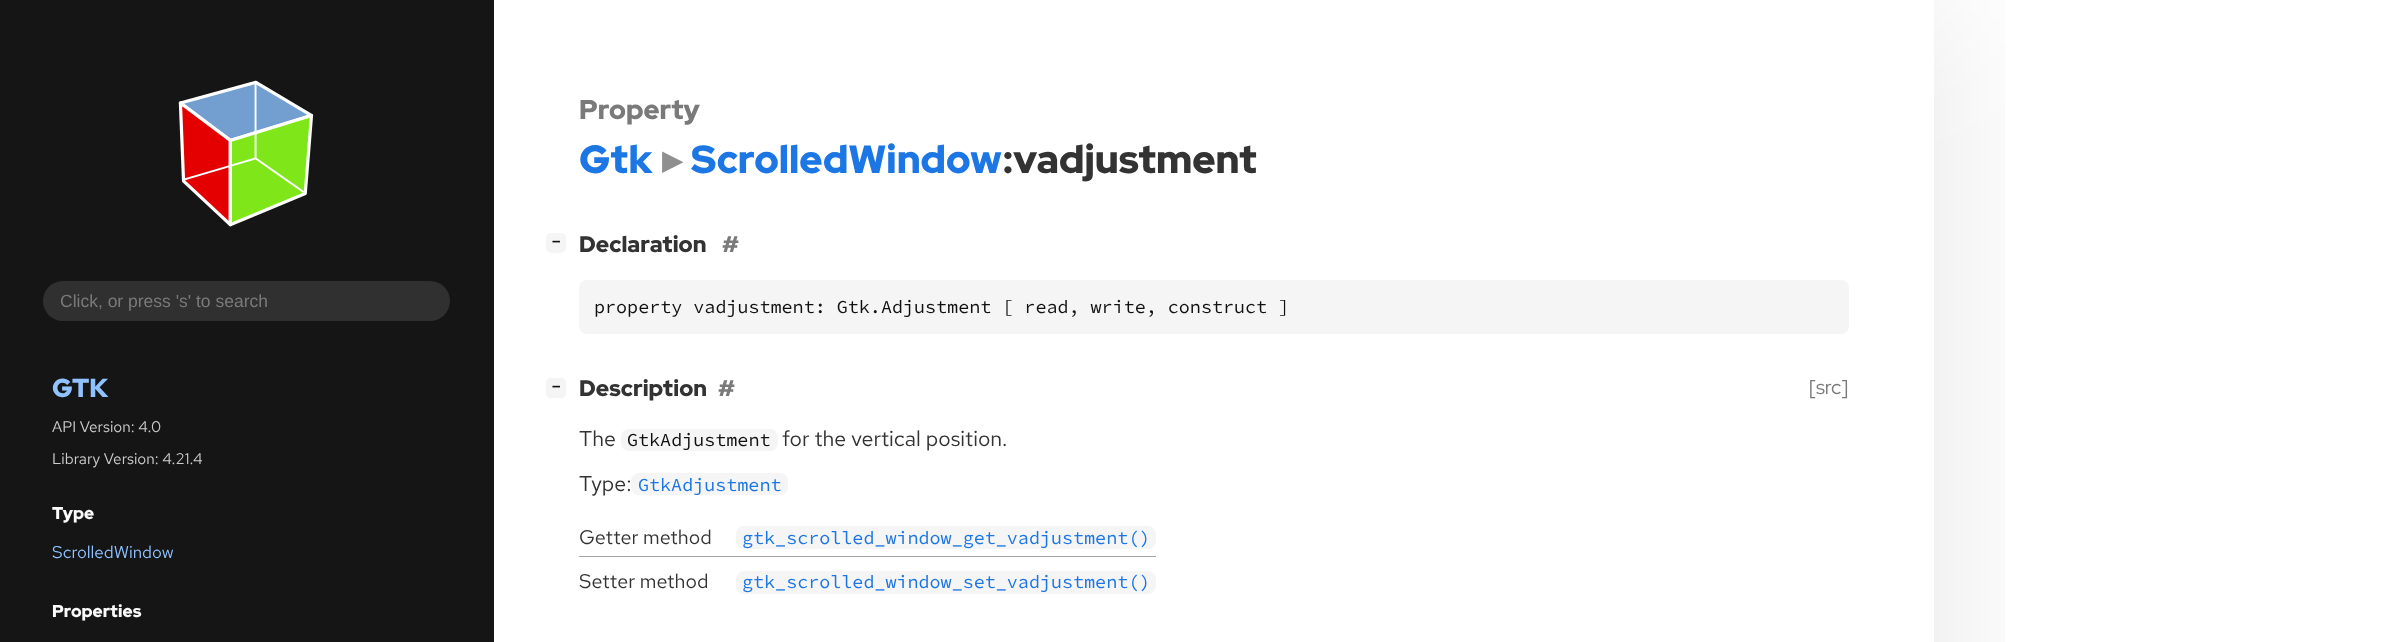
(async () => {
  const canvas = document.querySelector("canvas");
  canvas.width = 2396;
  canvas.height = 642;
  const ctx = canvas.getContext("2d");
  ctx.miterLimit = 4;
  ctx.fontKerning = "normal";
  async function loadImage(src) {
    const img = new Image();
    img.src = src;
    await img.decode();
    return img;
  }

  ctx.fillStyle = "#ffffff";
  ctx.fillRect(0, 0, 2396, 642);
  ctx.save();
  ctx.beginPath();
  ctx.rect(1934, 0, 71, 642);
  ctx.clip();
  ctx.fillStyle = "rgba(0, 0, 0, 0.1)";
  ctx.filter = "blur(84px)";
  ctx.beginPath();
  ctx.rect(494, 0, 1440, 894);
  ctx.fill();
  ctx.filter = "none";
  ctx.restore();
  ctx.fillStyle = "#151515";
  ctx.fillRect(0, 0, 494, 642);
  ctx.drawImage(await loadImage("img/1.png"), 178, 80, 136, 147);
  ctx.fillStyle = "#303030";
  ctx.beginPath();
  ctx.roundRect(43, 281, 407, 40, 20);
  ctx.fill();
  ctx.fillStyle = "#f5f5f5";
  ctx.beginPath();
  ctx.roundRect(546, 233, 20, 20, 5);
  ctx.fill();
  ctx.beginPath();
  ctx.roundRect(579, 280, 1270, 54, 8);
  ctx.fill();
  ctx.beginPath();
  ctx.roundRect(546, 378, 20, 20, 5);
  ctx.fill();
  ctx.beginPath();
  ctx.roundRect(621, 429, 157, 22, 8);
  ctx.fill();
  ctx.beginPath();
  ctx.roundRect(631, 473, 157, 22, 8);
  ctx.fill();
  ctx.fillStyle = "#a6a6a6";
  ctx.fillRect(579, 556, 577, 1);
  ctx.fillStyle = "#f5f5f5";
  ctx.beginPath();
  ctx.roundRect(736, 526, 420, 23, 8);
  ctx.fill();
  ctx.beginPath();
  ctx.roundRect(736, 571, 420, 23, 8);
  ctx.fill();
  ctx.font = "17.5px Liberation Sans";
  ctx.fillStyle = "#7a7a7a";
  ctx.fillText("Click, or press 's' to search", 60, 307);
  ctx.font = "900 26px Red Hat Display";
  ctx.fillStyle = "#90c2ff";
  ctx.fillText("GTK", 52, 397);
  ctx.font = "15.4px Red Hat Text";
  ctx.fillStyle = "#cccccc";
  ctx.fillText("API Version: 4.0", 52, 432);
  ctx.fillText("Library Version: 4.21.4", 52, 464);
  ctx.font = "900 17px Red Hat Display";
  ctx.fillStyle = "#fafafa";
  ctx.fillText("Type", 52, 519);
  ctx.font = "17px Red Hat Text";
  ctx.fillStyle = "#90c2ff";
  ctx.fillText("ScrolledWindow", 52, 558);
  ctx.font = "900 17px Red Hat Display";
  ctx.fillStyle = "#fafafa";
  ctx.fillText("Properties", 52, 617);
  ctx.font = "900 27px Red Hat Display";
  ctx.fillStyle = "#7a7a7a";
  ctx.fillText("Property", 579, 119);
  ctx.font = "900 39.25px Red Hat Display";
  ctx.fillStyle = "#1c76e4";
  ctx.fillText("Gtk", 579, 173);
  ctx.font = "bold 39.25px DejaVu Sans";
  ctx.fillStyle = "#8f8f8f";
  ctx.fillText("▸", 662, 173);
  ctx.font = "900 39.25px Red Hat Display";
  ctx.fillStyle = "#1c76e4";
  ctx.fillText("ScrolledWindow", 691, 173);
  ctx.fillStyle = "#333333";
  ctx.fillText(":vadjustment", 1003, 173);
  ctx.font = "bold 14px DejaVu Sans Mono";
  ctx.fillStyle = "#111111";
  ctx.fillText("−", 552, 246);
  ctx.font = "900 22.5px Red Hat Display";
  ctx.fillStyle = "#333333";
  ctx.fillText("Declaration", 579, 252);
  ctx.fillStyle = "#7a7a7a";
  ctx.fillText("#", 722, 252);
  ctx.font = "18.4px Source Code Pro";
  ctx.fillStyle = "#111111";
  ctx.fillText("property vadjustment: Gtk.Adjustment [ read, write, construct ]", 594, 313);
  ctx.font = "bold 14px DejaVu Sans Mono";
  ctx.fillText("−", 552, 391);
  ctx.font = "900 22.5px Red Hat Display";
  ctx.fillStyle = "#333333";
  ctx.fillText("Description", 579, 396);
  ctx.fillStyle = "#7a7a7a";
  ctx.fillText("#", 718, 396);
  ctx.font = "20px Red Hat Display";
  ctx.fillText("[src]", 1809, 394);
  ctx.font = "21.4px Red Hat Text";
  ctx.fillStyle = "#333333";
  ctx.fillText("The", 579, 446);
  ctx.font = "18.4px Source Code Pro";
  ctx.fillStyle = "#111111";
  ctx.fillText("GtkAdjustment", 627, 446);
  ctx.font = "21.4px Red Hat Text";
  ctx.fillStyle = "#333333";
  ctx.fillText("for the vertical position.", 782, 446);
  ctx.fillText("Type:", 579, 491);
  ctx.font = "18.4px Source Code Pro";
  ctx.fillStyle = "#1c76e4";
  ctx.fillText("GtkAdjustment", 638, 491);
  ctx.font = "19.75px Red Hat Text";
  ctx.fillStyle = "#333333";
  ctx.fillText("Getter method", 579, 544);
  ctx.font = "18.4px Source Code Pro";
  ctx.fillStyle = "#1c76e4";
  ctx.fillText("gtk_scrolled_window_get_vadjustment()", 742, 544);
  ctx.font = "19.75px Red Hat Text";
  ctx.fillStyle = "#333333";
  ctx.fillText("Setter method", 579, 588);
  ctx.font = "18.4px Source Code Pro";
  ctx.fillStyle = "#1c76e4";
  ctx.fillText("gtk_scrolled_window_set_vadjustment()", 742, 588);
})();
